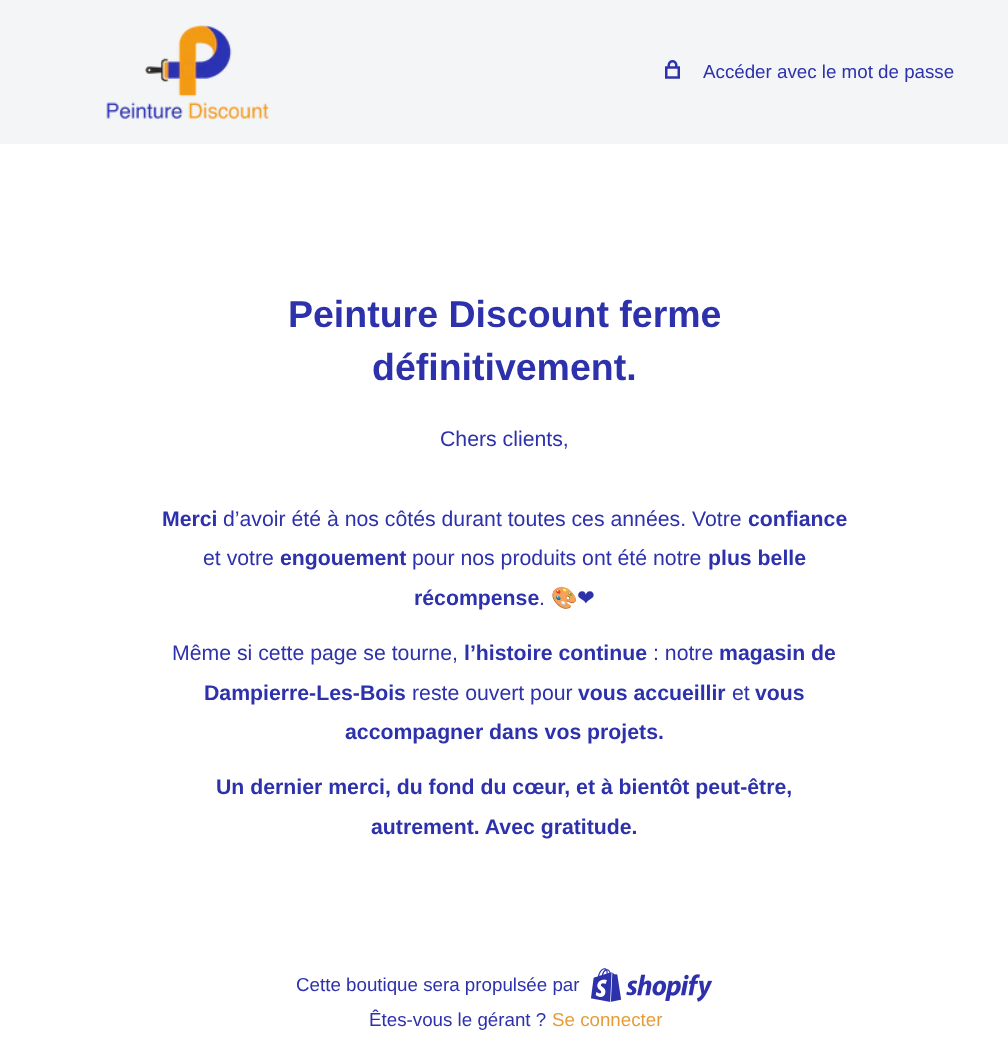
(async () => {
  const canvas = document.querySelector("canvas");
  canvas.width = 1008;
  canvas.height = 1062;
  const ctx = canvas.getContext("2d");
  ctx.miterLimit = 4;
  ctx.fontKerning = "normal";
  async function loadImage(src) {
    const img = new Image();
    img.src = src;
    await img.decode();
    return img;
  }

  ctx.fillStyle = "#ffffff";
  ctx.fillRect(0, 0, 1008, 1062);
  ctx.fillStyle = "#f3f5f6";
  ctx.fillRect(0, 0, 1008, 144);
  ctx.drawImage(await loadImage("img/1.png"), 106, 25, 163, 94);
  ctx.drawImage(await loadImage("img/2.png"), 665, 60, 15, 19);
  ctx.drawImage(await loadImage("img/3.png"), 591, 968, 122, 34);
  ctx.font = "18.75px Arimo";
  ctx.fillStyle = "#2d31ab";
  ctx.fillText("Accéder avec le mot de passe", 703, 78);
  ctx.font = "bold 37.5px Arimo";
  ctx.fillText("Peinture Discount ferme", 288, 327);
  ctx.fillText("définitivement.", 372, 380);
  ctx.font = "21.25px Arimo";
  ctx.fillText("Chers clients,", 440, 446);
  ctx.font = "bold 21.25px Arimo";
  ctx.fillText("Merci", 162, 526);
  ctx.font = "21.25px Arimo";
  ctx.fillText("d’avoir été à nos côtés durant toutes ces années. Votre", 223, 526);
  ctx.font = "bold 21.25px Arimo";
  ctx.fillText("confiance", 748, 526);
  ctx.font = "21.25px Arimo";
  ctx.fillText("et votre", 203, 565);
  ctx.font = "bold 21.25px Arimo";
  ctx.fillText("engouement", 280, 565);
  ctx.font = "21.25px Arimo";
  ctx.fillText("pour nos produits ont été notre", 412, 565);
  ctx.font = "bold 21.25px Arimo";
  ctx.fillText("plus belle", 708, 565);
  ctx.fillText("récompense", 414, 605);
  ctx.font = "21.25px Arimo";
  ctx.fillText(".", 539, 605);
  ctx.font = "21.25px Noto Color Emoji";
  ctx.fillText("🎨", 551, 605);
  ctx.font = "21.25px DejaVu Sans";
  ctx.fillText("❤", 577, 605);
  ctx.font = "21.25px Arimo";
  ctx.fillText("Même si cette page se tourne,", 172, 660);
  ctx.font = "bold 21.25px Arimo";
  ctx.fillText("l’histoire continue", 464, 660);
  ctx.font = "21.25px Arimo";
  ctx.fillText(": notre", 653, 660);
  ctx.font = "bold 21.25px Arimo";
  ctx.fillText("magasin de", 719, 660);
  ctx.fillText("Dampierre-Les-Bois", 204, 700);
  ctx.font = "21.25px Arimo";
  ctx.fillText("reste ouvert pour", 412, 700);
  ctx.font = "bold 21.25px Arimo";
  ctx.fillText("vous accueillir", 578, 700);
  ctx.font = "21.25px Arimo";
  ctx.fillText("et", 732, 700);
  ctx.font = "bold 21.25px Arimo";
  for (const [text, x, y] of [
    ["vous", 755, 700],
    ["accompagner dans vos projets.", 345, 739],
    ["Un dernier merci, du fond du cœur, et à bientôt peut-être,", 216, 794],
    ["autrement. Avec gratitude.", 371, 834],
  ]) {
    ctx.fillText(text, x, y);
  }
  ctx.font = "18.75px Arimo";
  ctx.fillText("Cette boutique sera propulsée par", 296, 991);
  ctx.fillText("Êtes-vous le gérant ?", 369, 1026);
  ctx.fillStyle = "#e59d3b";
  ctx.fillText("Se connecter", 552, 1026);
})();
